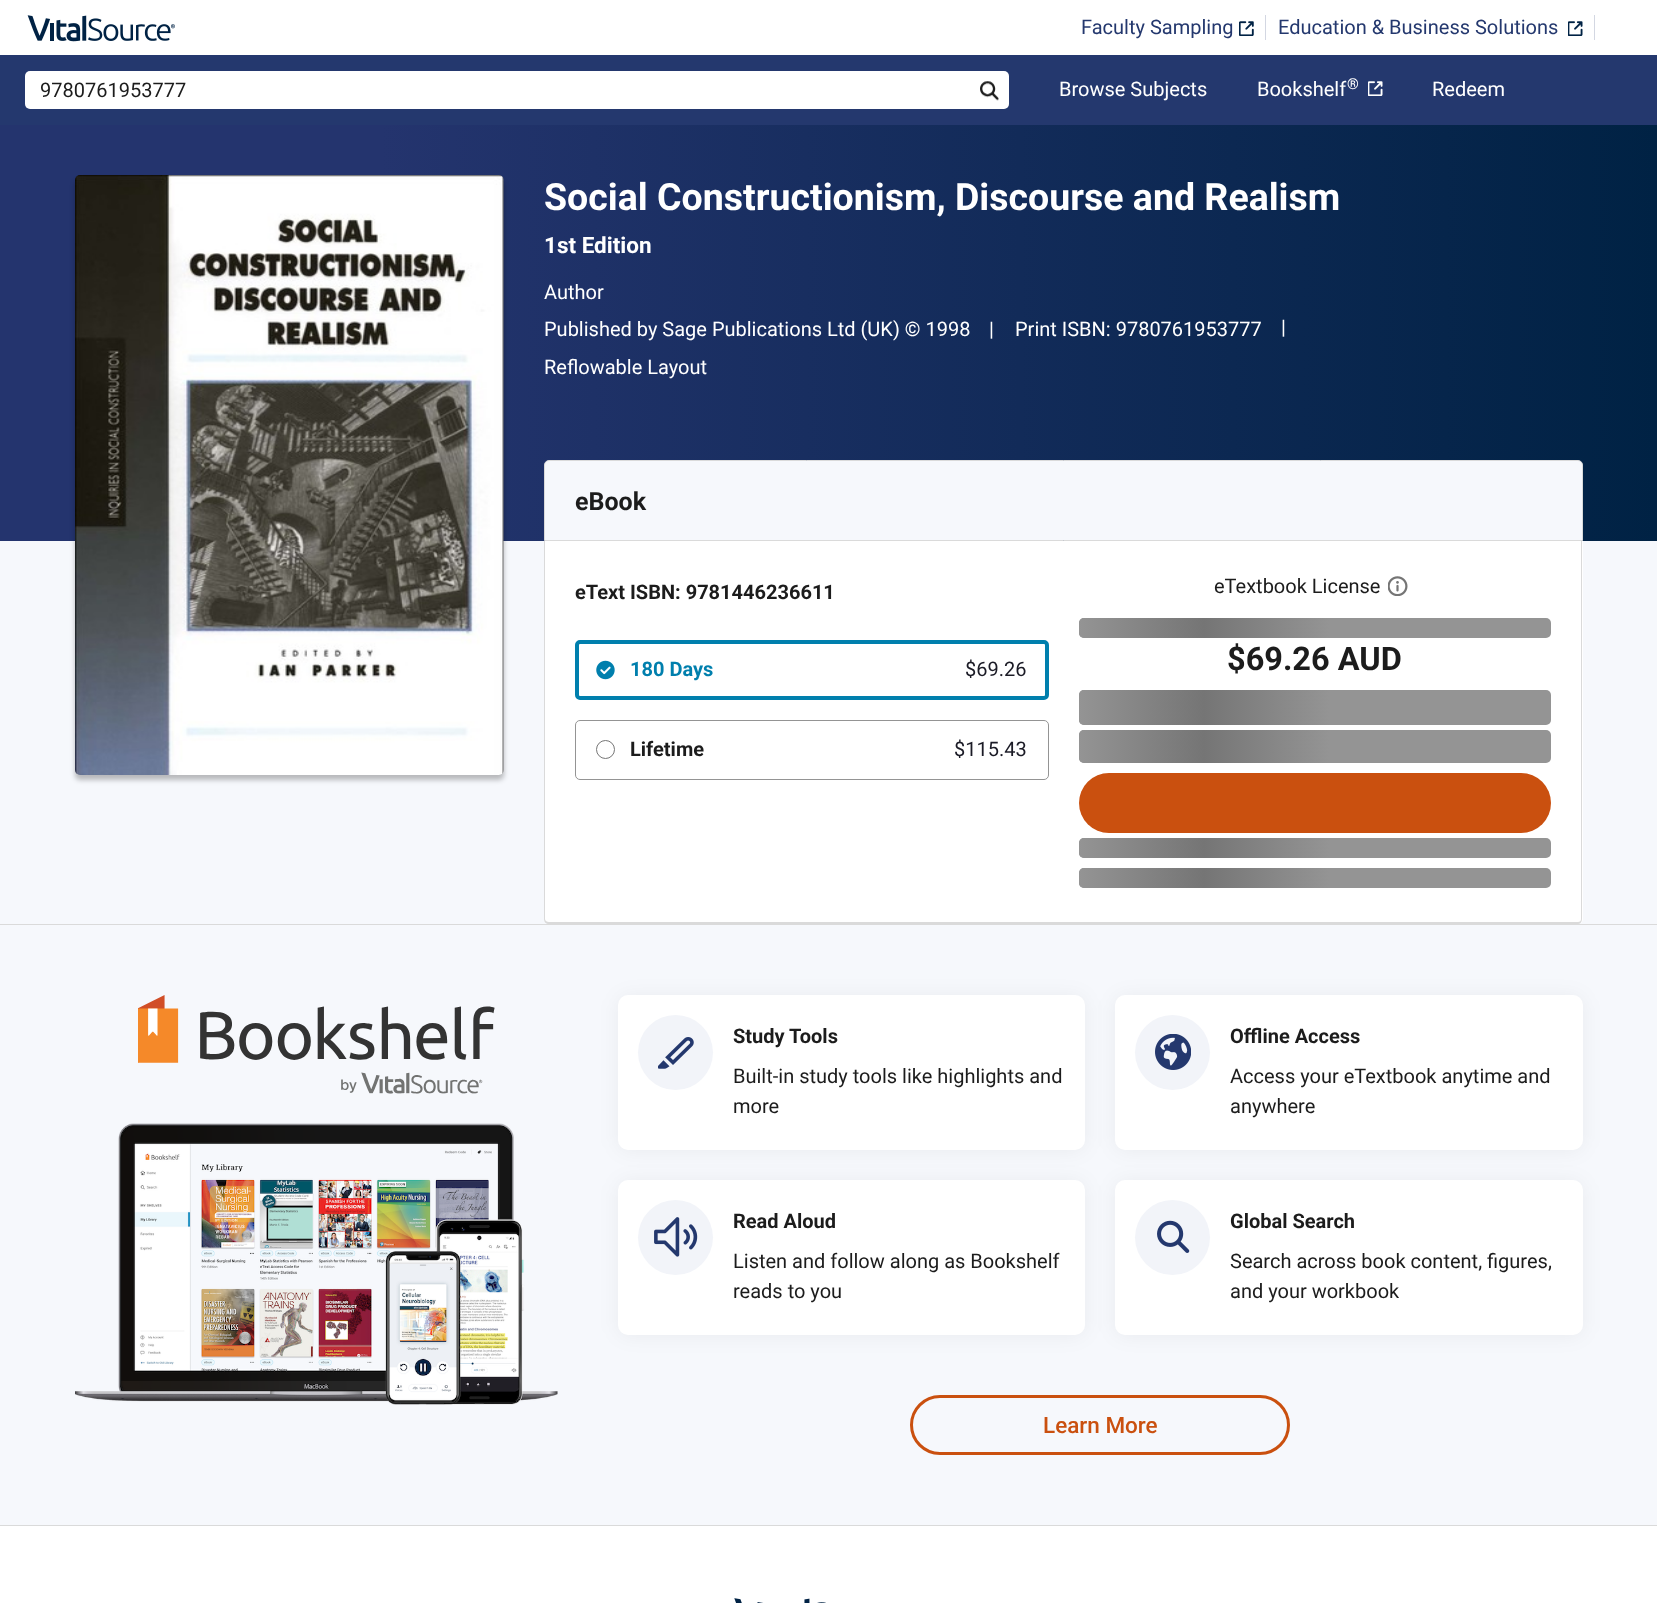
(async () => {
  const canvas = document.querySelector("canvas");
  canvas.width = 1657;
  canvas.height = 1603;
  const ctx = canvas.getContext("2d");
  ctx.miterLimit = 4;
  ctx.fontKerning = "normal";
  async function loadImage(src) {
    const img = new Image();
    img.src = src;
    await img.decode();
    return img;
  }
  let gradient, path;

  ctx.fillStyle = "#ffffff";
  ctx.fillRect(0, 0, 1657, 1603);
  ctx.drawImage(await loadImage("img/1.png"), 27, 15, 148, 27);
  ctx.drawImage(await loadImage("img/2.png"), 1239, 21, 15, 15);
  ctx.fillStyle = "#d3d7e2";
  ctx.fillRect(1265, 15, 1, 25);
  ctx.drawImage(await loadImage("img/3.png"), 1568, 21, 15, 15);
  ctx.fillRect(1594, 15, 1, 25);
  ctx.fillStyle = "#24386e";
  ctx.fillRect(0, 55, 1657, 70);
  ctx.fillStyle = "#ffffff";
  ctx.beginPath();
  ctx.roundRect(25, 71, 984, 38, 5);
  ctx.fill();
  ctx.drawImage(await loadImage("img/4.png"), 980, 81, 19, 20);
  ctx.drawImage(await loadImage("img/5.png"), 1368, 81, 15, 15);
  ctx.fillStyle = "#f6f8fc";
  ctx.fillRect(0, 541, 1657, 383);
  gradient = ctx.createLinearGradient(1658, 333, 0, 333);
  gradient.addColorStop(0, "#002244");
  gradient.addColorStop(0.77, "#24346e");
  ctx.fillStyle = gradient;
  ctx.fillRect(0, 125, 1657, 416);
  ctx.fillStyle = "rgba(0, 0, 0, 0.25)";
  ctx.filter = "blur(2.5px)";
  ctx.beginPath();
  ctx.roundRect(75, 180, 429, 600, 5);
  ctx.fill();
  ctx.filter = "none";
  ctx.drawImage(await loadImage("img/6.png"), 75, 175, 429, 600);
  ctx.fillStyle = "#f6f8fc";
  ctx.beginPath();
  ctx.roundRect(544.5, 460.5, 1038, 80, [4.5, 4.5, 0, 0]);
  ctx.fill();
  ctx.strokeStyle = "#dadada";
  ctx.stroke();
  ctx.fillStyle = "#ffffff";
  ctx.beginPath();
  ctx.roundRect(544, 541, 1039, 383, [0, 0, 5, 5]);
  ctx.fill();
  ctx.fillStyle = "#dadada";
  path = new Path2D("M544 541H1582V919C1582 922 1580 924 1578 924H549C546 924 544 922 544 919ZM545 541H1581V919C1581 921 1580 922 1578 922H549C547 922 545 921 545 919Z");
  ctx.fill(path, "evenodd");
  ctx.beginPath();
  ctx.roundRect(577, 642, 470, 56, 3);
  ctx.strokeStyle = "#007fad";
  ctx.lineWidth = 4;
  ctx.stroke();
  ctx.drawImage(await loadImage("img/7.png"), 596, 660, 19, 20);
  ctx.beginPath();
  ctx.roundRect(575.5, 720.5, 473, 59, 4.5);
  ctx.strokeStyle = "#949494";
  ctx.lineWidth = 1;
  ctx.stroke();
  ctx.beginPath();
  ctx.arc(605.5, 749.5, 9, 0, Math.PI * 2);
  ctx.strokeStyle = "#767676";
  ctx.stroke();
  ctx.drawImage(await loadImage("img/8.png"), 1388, 576, 20, 20);
  ctx.fillStyle = "#949494";
  ctx.beginPath();
  ctx.roundRect(1079, 618, 472, 20, 5);
  ctx.fill();
  gradient = ctx.createLinearGradient(1079, 628, 1329, 628);
  gradient.addColorStop(0, "#949494");
  gradient.addColorStop(0.5, "#757575");
  gradient.addColorStop(1, "#949494");
  ctx.fillStyle = gradient;
  ctx.beginPath();
  ctx.roundRect(1079, 618, 250, 20, [5, 0, 0, 5]);
  ctx.fill();
  ctx.fillStyle = "#949494";
  ctx.beginPath();
  ctx.roundRect(1079, 690, 472, 35, 5);
  ctx.fill();
  gradient = ctx.createLinearGradient(1079, 708, 1329, 708);
  gradient.addColorStop(0, "#949494");
  gradient.addColorStop(0.5, "#757575");
  gradient.addColorStop(1, "#949494");
  ctx.fillStyle = gradient;
  ctx.beginPath();
  ctx.roundRect(1079, 690, 250, 35, [5, 0, 0, 5]);
  ctx.fill();
  ctx.fillStyle = "#949494";
  ctx.beginPath();
  ctx.roundRect(1079, 730, 472, 33, 5);
  ctx.fill();
  gradient = ctx.createLinearGradient(1079, 746, 1329, 746);
  gradient.addColorStop(0, "#949494");
  gradient.addColorStop(0.5, "#757575");
  gradient.addColorStop(1, "#949494");
  ctx.fillStyle = gradient;
  ctx.beginPath();
  ctx.roundRect(1079, 730, 250, 33, [5, 0, 0, 5]);
  ctx.fill();
  ctx.fillStyle = "#ca500f";
  ctx.beginPath();
  ctx.roundRect(1079, 773, 472, 60, 30);
  ctx.fill();
  ctx.fillStyle = "#949494";
  ctx.beginPath();
  ctx.roundRect(1079, 838, 472, 20, 5);
  ctx.fill();
  gradient = ctx.createLinearGradient(1079, 848, 1329, 848);
  gradient.addColorStop(0, "#949494");
  gradient.addColorStop(0.5, "#757575");
  gradient.addColorStop(1, "#949494");
  ctx.fillStyle = gradient;
  ctx.beginPath();
  ctx.roundRect(1079, 838, 250, 20, [5, 0, 0, 5]);
  ctx.fill();
  ctx.fillStyle = "#949494";
  ctx.beginPath();
  ctx.roundRect(1079, 868, 472, 20, 5);
  ctx.fill();
  gradient = ctx.createLinearGradient(1079, 878, 1329, 878);
  gradient.addColorStop(0, "#949494");
  gradient.addColorStop(0.5, "#757575");
  gradient.addColorStop(1, "#949494");
  ctx.fillStyle = gradient;
  ctx.beginPath();
  ctx.roundRect(1079, 868, 250, 20, [5, 0, 0, 5]);
  ctx.fill();
  ctx.fillStyle = "#f6f8fc";
  ctx.fillRect(0, 925, 1657, 600);
  ctx.fillStyle = "#dadada";
  ctx.fillRect(0, 924, 1657, 1);
  ctx.drawImage(await loadImage("img/9.png"), 138, 995, 357, 99);
  ctx.drawImage(await loadImage("img/10.png"), 75, 1123, 483, 282);
  ctx.fillStyle = "rgba(0, 0, 0, 0.05)";
  ctx.filter = "blur(10px)";
  ctx.beginPath();
  ctx.roundRect(618, 996, 467, 155, 10);
  ctx.fill();
  ctx.filter = "none";
  ctx.fillStyle = "#ffffff";
  ctx.beginPath();
  ctx.roundRect(618, 995, 467, 155, 10);
  ctx.fill();
  ctx.fillStyle = "#f2f4f9";
  ctx.beginPath();
  ctx.arc(675.5, 1052.5, 37.5, 0, Math.PI * 2);
  ctx.fill();
  ctx.drawImage(await loadImage("img/11.png"), 658, 1037, 36, 32);
  ctx.fillStyle = "rgba(0, 0, 0, 0.05)";
  ctx.filter = "blur(10px)";
  ctx.beginPath();
  ctx.roundRect(618, 1181, 467, 155, 10);
  ctx.fill();
  ctx.filter = "none";
  ctx.fillStyle = "#ffffff";
  ctx.beginPath();
  ctx.roundRect(618, 1180, 467, 155, 10);
  ctx.fill();
  ctx.fillStyle = "rgba(0, 0, 0, 0.05)";
  ctx.filter = "blur(10px)";
  ctx.beginPath();
  ctx.roundRect(1115, 996, 468, 155, 10);
  ctx.fill();
  ctx.filter = "none";
  ctx.fillStyle = "#ffffff";
  ctx.beginPath();
  ctx.roundRect(1115, 995, 468, 155, 10);
  ctx.fill();
  ctx.fillStyle = "#f2f4f9";
  ctx.beginPath();
  ctx.arc(1172.5, 1052.5, 37.5, 0, Math.PI * 2);
  ctx.fill();
  ctx.drawImage(await loadImage("img/12.png"), 1155, 1034, 36, 36);
  ctx.beginPath();
  ctx.arc(675.5, 1237.5, 37.5, 0, Math.PI * 2);
  ctx.fill();
  ctx.drawImage(await loadImage("img/13.png"), 654, 1217, 44, 40);
  ctx.fillStyle = "rgba(0, 0, 0, 0.05)";
  ctx.filter = "blur(10px)";
  ctx.beginPath();
  ctx.roundRect(1115, 1181, 468, 155, 10);
  ctx.fill();
  ctx.filter = "none";
  ctx.fillStyle = "#ffffff";
  ctx.beginPath();
  ctx.roundRect(1115, 1180, 468, 155, 10);
  ctx.fill();
  ctx.fillStyle = "#f2f4f9";
  ctx.beginPath();
  ctx.arc(1172.5, 1237.5, 37.5, 0, Math.PI * 2);
  ctx.fill();
  ctx.drawImage(await loadImage("img/14.png"), 1157, 1220, 33, 33);
  ctx.beginPath();
  ctx.roundRect(911.5, 1396.5, 377, 57, 28.5);
  ctx.strokeStyle = "#ca500f";
  ctx.lineWidth = 3;
  ctx.stroke();
  ctx.fillStyle = "#dadada";
  ctx.fillRect(0, 1525, 1657, 1);
  ctx.drawImage(await loadImage("img/15.png"), 734, 1598, 92, 5);
  ctx.font = "20px Roboto";
  ctx.fillStyle = "#24386e";
  ctx.fillText("Faculty Sampling", 1081, 34);
  ctx.fillText("Education & Business Solutions", 1278, 34);
  ctx.fillStyle = "#1c1c1c";
  ctx.fillText("9780761953777", 40, 97);
  ctx.fillStyle = "#ffffff";
  ctx.fillText("Browse Subjects", 1059, 96);
  ctx.fillText("Bookshelf", 1257, 96);
  ctx.font = "15px Roboto";
  ctx.fillText("®", 1347, 89);
  ctx.font = "20px Roboto";
  ctx.fillText("Redeem", 1432, 96);
  ctx.font = "bold 37.5px Roboto";
  ctx.fillText("Social Constructionism, Discourse and Realism", 544, 210);
  ctx.font = "bold 22.5px Roboto";
  ctx.fillText("1st Edition", 544, 253);
  ctx.font = "20px Roboto";
  for (const [text, x, y] of [
    ["Author", 544, 299],
    ["Published by Sage Publications Ltd (UK) © 1998", 544, 336],
    ["|", 989, 336],
    ["Print ISBN: 9780761953777", 1015, 336],
    ["|", 1281, 334],
    ["Reflowable Layout", 544, 374],
  ]) {
    ctx.fillText(text, x, y);
  }
  ctx.font = "bold 25px Roboto";
  ctx.fillStyle = "#1c1c1c";
  ctx.fillText("eBook", 575, 510);
  ctx.font = "bold 20px Roboto";
  ctx.fillText("eText ISBN: 9781446236611", 575, 599);
  ctx.fillStyle = "#007fad";
  ctx.fillText("180 Days", 630, 676);
  ctx.font = "20px Roboto";
  ctx.fillStyle = "#1b1b26";
  ctx.fillText("$69.26", 965, 676);
  ctx.font = "bold 20px Roboto";
  ctx.fillStyle = "#1c1c1c";
  ctx.fillText("Lifetime", 630, 756);
  ctx.font = "20px Roboto";
  ctx.fillStyle = "#1b1b26";
  ctx.fillText("$115.43", 954, 756);
  ctx.fillStyle = "#1c1c1c";
  ctx.fillText("eTextbook License", 1214, 593);
  ctx.font = "bold 32.5px Roboto";
  ctx.fillText("$69.26 AUD", 1227, 670);
  ctx.font = "bold 20px Roboto";
  ctx.fillText("Study Tools", 733, 1043);
  ctx.font = "20px Roboto";
  ctx.fillText("Built-in study tools like highlights and", 733, 1083);
  ctx.fillText("more", 733, 1113);
  ctx.font = "bold 20px Roboto";
  ctx.fillText("Offline Access", 1230, 1043);
  ctx.font = "20px Roboto";
  ctx.fillText("Access your eTextbook anytime and", 1230, 1083);
  ctx.fillText("anywhere", 1230, 1113);
  ctx.font = "bold 20px Roboto";
  ctx.fillText("Read Aloud", 733, 1228);
  ctx.font = "20px Roboto";
  ctx.fillText("Listen and follow along as Bookshelf", 733, 1268);
  ctx.fillText("reads to you", 733, 1298);
  ctx.font = "bold 20px Roboto";
  ctx.fillText("Global Search", 1230, 1228);
  ctx.font = "20px Roboto";
  ctx.fillText("Search across book content, figures,", 1230, 1268);
  ctx.fillText("and your workbook", 1230, 1298);
  ctx.font = "500 22.5px Roboto";
  ctx.fillStyle = "#ca500f";
  ctx.fillText("Learn More", 1043, 1433);
})();
